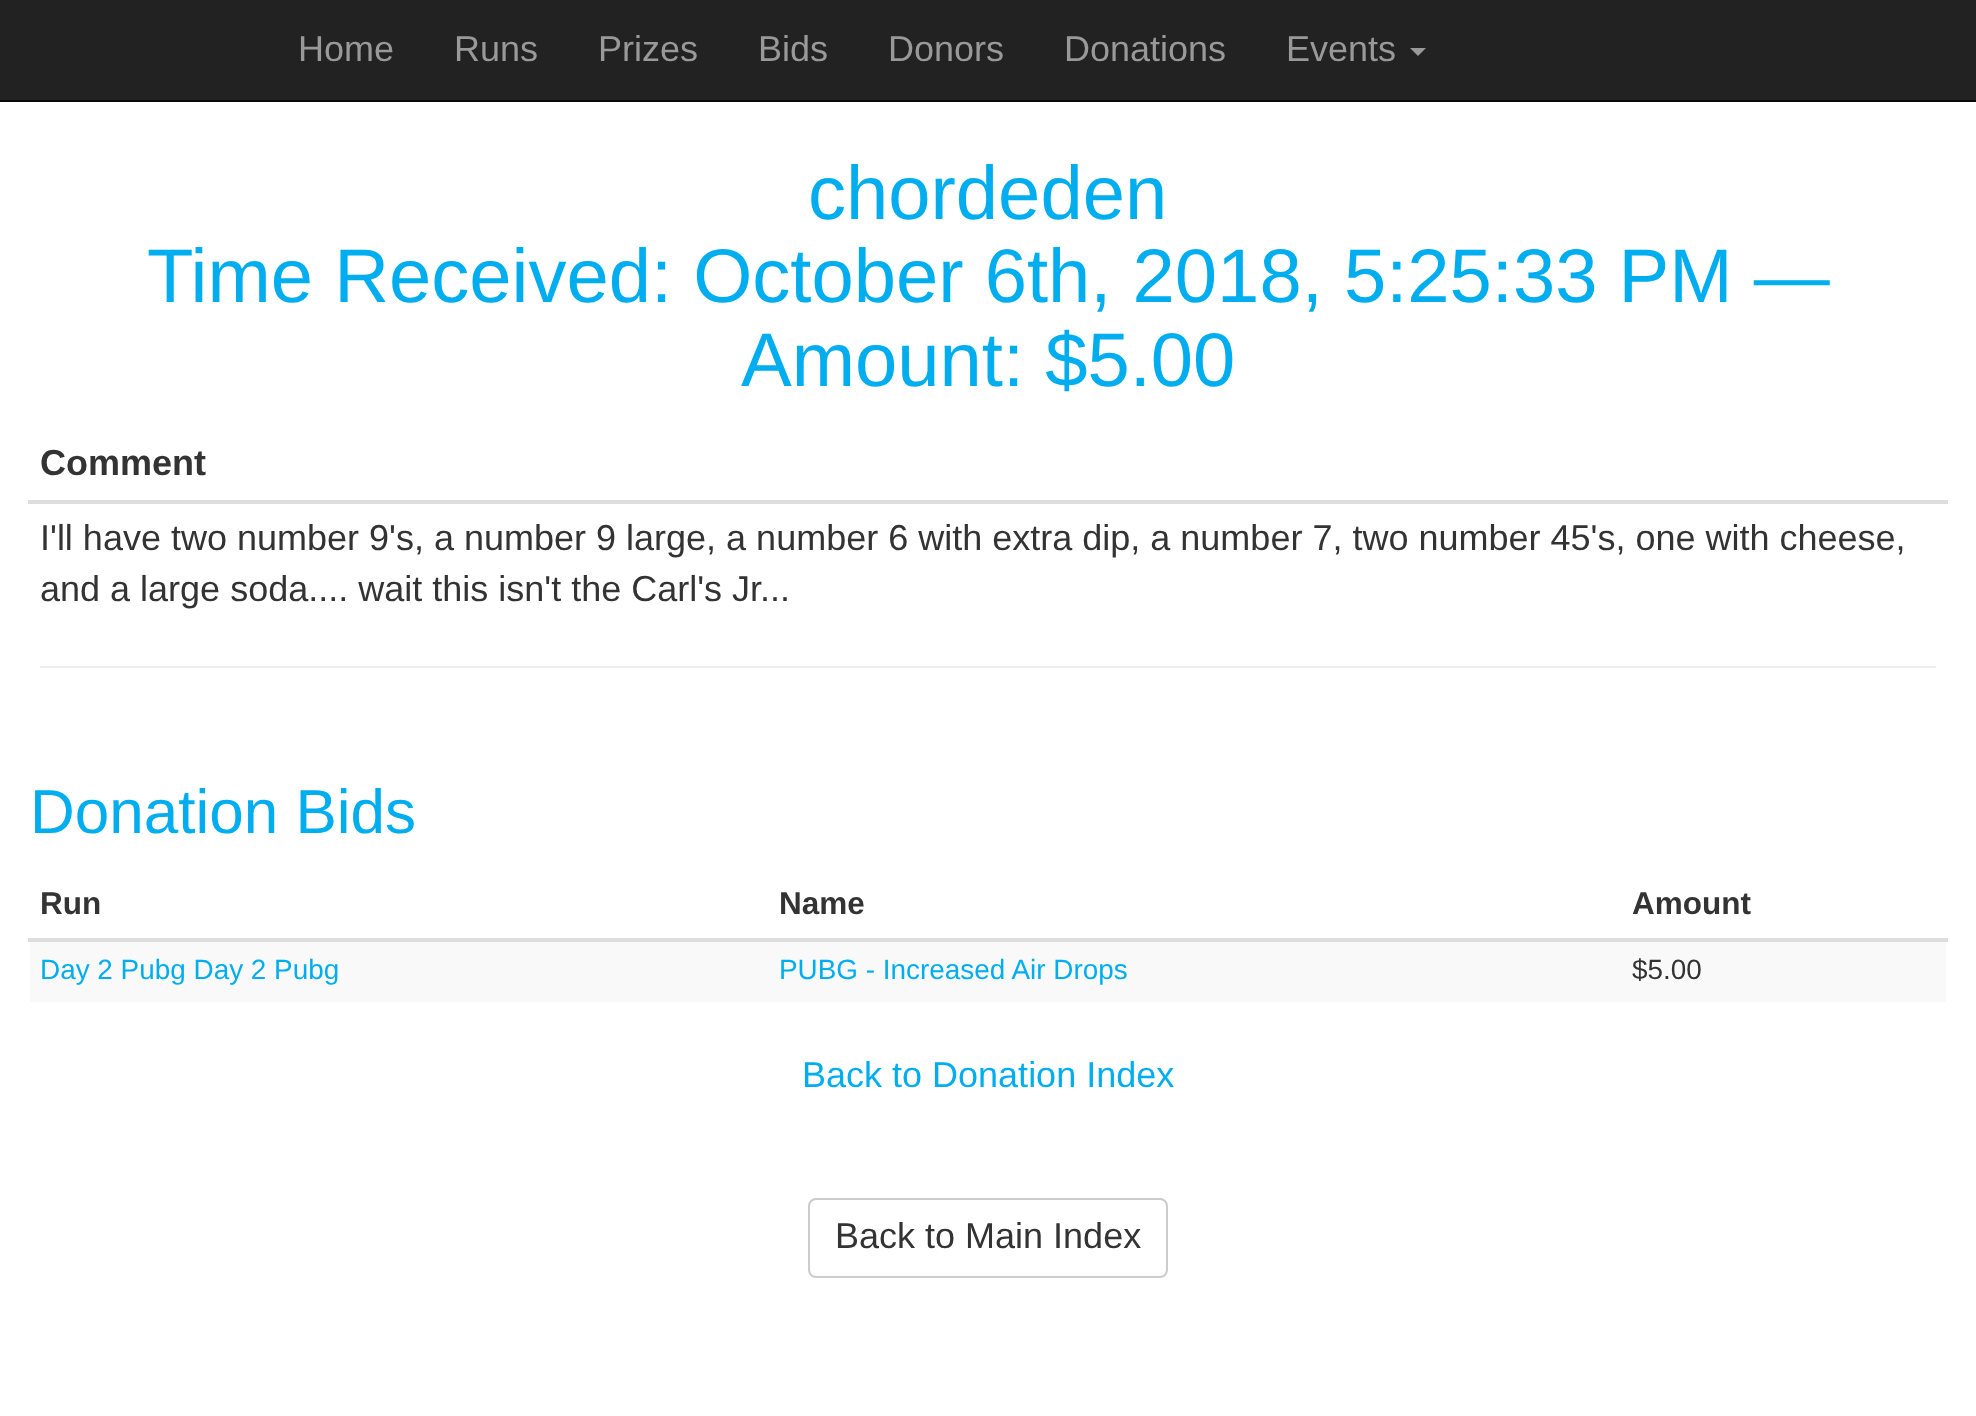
(async () => {
  const canvas = document.querySelector("canvas");
  canvas.width = 1976;
  canvas.height = 1416;
  const ctx = canvas.getContext("2d");
  ctx.miterLimit = 4;
  ctx.fontKerning = "normal";
  let path;

  ctx.fillStyle = "#ffffff";
  ctx.fillRect(0, 0, 1976, 1416);
  ctx.fillStyle = "#222222";
  ctx.fillRect(0, 0, 1976, 100);
  ctx.fillStyle = "#080808";
  ctx.fillRect(0, 100, 1976, 2);
  ctx.fillStyle = "#999999";
  path = new Path2D("M1410 48H1426L1418 56Z");
  ctx.fill(path);
  for (const [x, y, w, h, color] of [
    [28, 500, 1920, 4, "#dddddd"],
    [40, 666, 1896, 2, "#eeeeee"],
    [28, 938, 1920, 4, "#dddddd"],
    [30, 942, 1916, 60, "#f9f9f9"],
  ]) {
    ctx.fillStyle = color;
    ctx.fillRect(x, y, w, h);
  }
  ctx.beginPath();
  ctx.roundRect(809, 1199, 358, 78, 7);
  ctx.strokeStyle = "#cccccc";
  ctx.lineWidth = 2;
  ctx.stroke();
  ctx.font = "36px Liberation Sans";
  ctx.fillStyle = "#999999";
  for (const [text, x, y] of [
    ["Home", 298, 61],
    ["Runs", 454, 61],
    ["Prizes", 598, 61],
    ["Bids", 758, 61],
    ["Donors", 888, 61],
    ["Donations", 1064, 61],
    ["Events", 1286, 61],
  ]) {
    ctx.fillText(text, x, y);
  }
  ctx.font = "76px Liberation Sans";
  ctx.fillStyle = "#00aeef";
  for (const [text, x, y] of [
    ["chordeden", 808, 219],
    ["Time Received: October 6th, 2018, 5:25:33 PM —", 147, 302],
    ["Amount: $5.00", 741, 386],
  ]) {
    ctx.fillText(text, x, y);
  }
  ctx.font = "bold 36px Liberation Sans";
  ctx.fillStyle = "#333333";
  ctx.fillText("Comment", 40, 475);
  ctx.font = "36px Liberation Sans";
  ctx.fillText("I'll have two number 9's, a number 9 large, a number 6 with extra dip, a number 7, two number 45's, one with cheese,", 40, 550);
  ctx.fillText("and a large soda.... wait this isn't the Carl's Jr...", 40, 601);
  ctx.font = "62px Liberation Sans";
  ctx.fillStyle = "#00aeef";
  ctx.fillText("Donation Bids", 30, 833);
  ctx.font = "bold 31.5px Liberation Sans";
  ctx.fillStyle = "#333333";
  for (const [text, x, y] of [
    ["Run", 40, 914],
    ["Name", 779, 914],
    ["Amount", 1632, 914],
  ]) {
    ctx.fillText(text, x, y);
  }
  ctx.font = "27.9px Liberation Sans";
  ctx.fillStyle = "#00aeef";
  ctx.fillText("Day 2 Pubg Day 2 Pubg", 40, 979);
  ctx.fillText("PUBG - Increased Air Drops", 779, 979);
  ctx.fillStyle = "#333333";
  ctx.fillText("$5.00", 1632, 979);
  ctx.font = "36px Liberation Sans";
  ctx.fillStyle = "#00aeef";
  ctx.fillText("Back to Donation Index", 802, 1087);
  ctx.fillStyle = "#333333";
  ctx.fillText("Back to Main Index", 835, 1248);
})();
